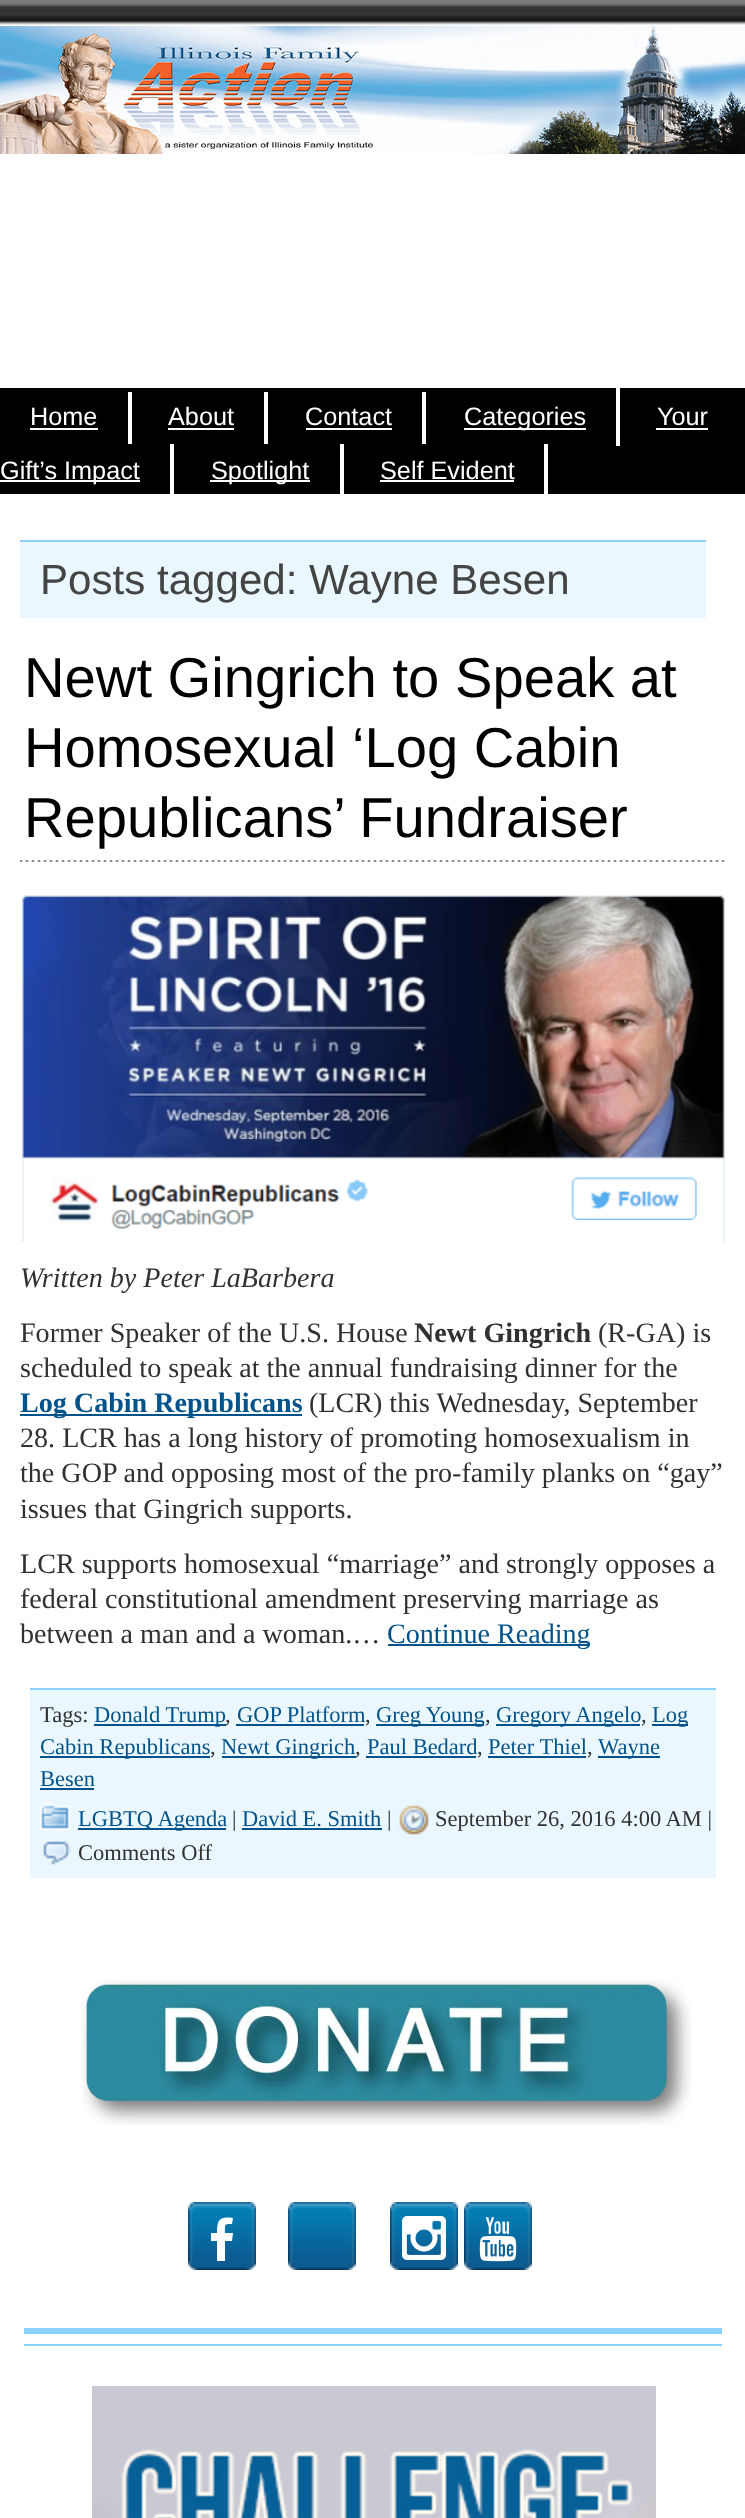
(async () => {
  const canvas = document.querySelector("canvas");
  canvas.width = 745;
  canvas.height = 2518;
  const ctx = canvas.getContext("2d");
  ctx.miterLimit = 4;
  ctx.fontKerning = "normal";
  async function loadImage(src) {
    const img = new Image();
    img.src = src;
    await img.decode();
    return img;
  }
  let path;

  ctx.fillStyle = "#ffffff";
  ctx.fillRect(0, 0, 745, 2518);
  ctx.drawImage(await loadImage("img/1.png"), 0, 0, 745, 25);
  ctx.drawImage(await loadImage("img/2.png"), 0, 26, 745, 128);
  for (const [x, y, w, h, color] of [
    [0, 388, 745, 106, "#000000"],
    [128, 392, 4, 52, "#ffffff"],
    [30, 428, 68, 2, "#ffffff"],
    [264, 392, 4, 52, "#ffffff"],
    [168, 428, 66, 2, "#ffffff"],
    [422, 392, 4, 52, "#ffffff"],
    [306, 428, 86, 2, "#ffffff"],
    [616, 388, 4, 58, "#ffffff"],
    [464, 428, 122, 2, "#ffffff"],
    [656, 428, 52, 2, "#ffffff"],
    [170, 444, 4, 52, "#ffffff"],
    [0, 480, 140, 2, "#ffffff"],
    [340, 444, 4, 52, "#ffffff"],
    [210, 480, 100, 2, "#ffffff"],
    [544, 444, 4, 52, "#ffffff"],
    [380, 480, 134, 2, "#ffffff"],
    [20, 542, 686, 76, "#ebf7ff"],
    [20, 540, 686, 2, "#8cd1fd"],
  ]) {
    ctx.fillStyle = color;
    ctx.fillRect(x, y, w, h);
  }
  ctx.drawImage(await loadImage("img/3.png"), 20, 860, 705, 2);
  ctx.drawImage(await loadImage("img/4.png"), 21, 895, 704, 347);
  for (const [x, y, w, h, color] of [
    [20, 1414, 282, 2, "#00538a"],
    [388, 1644, 202, 2, "#00538a"],
    [30, 1690, 686, 188, "#ebf7ff"],
    [30, 1688, 686, 2, "#8cd1fd"],
    [94, 1724, 132, 2, "#00538a"],
    [236, 1724, 128, 2, "#00538a"],
    [376, 1724, 108, 2, "#00538a"],
    [496, 1724, 144, 2, "#00538a"],
    [652, 1724, 36, 2, "#00538a"],
    [40, 1756, 170, 2, "#00538a"],
    [222, 1756, 134, 2, "#00538a"],
    [366, 1756, 110, 2, "#00538a"],
    [488, 1756, 98, 2, "#00538a"],
    [598, 1756, 62, 2, "#00538a"],
    [40, 1788, 54, 2, "#00538a"],
  ]) {
    ctx.fillStyle = color;
    ctx.fillRect(x, y, w, h);
  }
  ctx.drawImage(await loadImage("img/5.png"), 40, 1803, 31, 28);
  ctx.fillRect(78, 1828, 148, 2);
  ctx.fillRect(242, 1828, 140, 2);
  ctx.drawImage(await loadImage("img/6.png"), 399, 1805, 30, 30);
  ctx.drawImage(await loadImage("img/7.png"), 42, 1841, 29, 24);
  ctx.drawImage(await loadImage("img/8.png"), 82, 1980, 609, 145);
  ctx.drawImage(await loadImage("img/9.png"), 188, 2202, 68, 68);
  ctx.fillStyle = "#ffffff";
  path = new Path2D("M211 2241V2233H217C217 2220 219 2216 233 2218L232 2224C224 2224 225 2224 225 2233H233L232 2241H225V2261H217V2241Z");
  ctx.fill(path);
  ctx.drawImage(await loadImage("img/9.png"), 288, 2202, 68, 68);
  ctx.drawImage(await loadImage("img/9.png"), 390, 2202, 68, 68);
  ctx.drawImage(await loadImage("img/10.png"), 402, 2216, 44, 44);
  ctx.drawImage(await loadImage("img/9.png"), 464, 2202, 68, 68);
  ctx.drawImage(await loadImage("img/11.png"), 479, 2217, 38, 45);
  ctx.fillStyle = "#8cd1fd";
  ctx.fillRect(24, 2328, 698, 6);
  ctx.fillRect(24, 2344, 698, 2);
  ctx.drawImage(await loadImage("img/12.png"), 92, 2386, 564, 132);
  ctx.font = "25.25px Liberation Sans";
  ctx.fillStyle = "#ffffff";
  for (const [text, x, y] of [
    ["Home", 30, 425],
    ["About", 168, 425],
    ["Contact", 305, 425],
    ["Categories", 464, 425],
    ["Your", 657, 425],
    ["Gift’s Impact", 0, 479],
    ["Spotlight", 211, 479],
    ["Self Evident", 380, 479],
  ]) {
    ctx.fillText(text, x, y);
  }
  ctx.font = "42.1px Liberation Sans";
  ctx.fillStyle = "#444444";
  ctx.fillText("Posts tagged: Wayne Besen", 40, 594);
  ctx.font = "56.2px Liberation Sans";
  ctx.fillStyle = "#000000";
  for (const [text, x, y] of [
    ["Newt Gingrich to Speak at", 24, 697],
    ["Homosexual ‘Log Cabin", 24, 767],
    ["Republicans’ Fundraiser", 24, 837],
  ]) {
    ctx.fillText(text, x, y);
  }
  ctx.font = "italic 28.1px Liberation Serif";
  ctx.fillStyle = "#313131";
  ctx.fillText("Written by Peter LaBarbera", 20, 1287);
  ctx.font = "28.1px Liberation Serif";
  ctx.fillText("Former Speaker of the U.S. House", 20, 1342);
  ctx.font = "bold 28.1px Liberation Serif";
  ctx.fillText("Newt Gingrich", 414, 1342);
  ctx.font = "28.1px Liberation Serif";
  ctx.fillText("(R-GA) is", 598, 1342);
  ctx.fillText("scheduled to speak at the annual fundraising dinner for the", 20, 1377);
  ctx.font = "bold 28.1px Liberation Serif";
  ctx.fillStyle = "#00538a";
  ctx.fillText("Log Cabin Republicans", 20, 1412);
  ctx.font = "28.1px Liberation Serif";
  ctx.fillStyle = "#313131";
  for (const [text, x, y] of [
    ["(LCR) this Wednesday, September", 309, 1412],
    ["28. LCR has a long history of promoting homosexualism in", 20, 1447],
    ["the GOP and opposing most of the pro-family planks on “gay”", 20, 1482],
    ["issues that Gingrich supports.", 20, 1518],
    ["LCR supports homosexual “marriage” and strongly opposes a", 20, 1573],
    ["federal constitutional amendment preserving marriage as", 20, 1608],
    ["between a man and a woman.…", 20, 1643],
  ]) {
    ctx.fillText(text, x, y);
  }
  ctx.fillStyle = "#00538a";
  ctx.fillText("Continue Reading", 387, 1643);
  ctx.font = "22.5px Liberation Serif";
  ctx.fillStyle = "#313131";
  ctx.fillText("Tags:", 40, 1722);
  ctx.fillStyle = "#00538a";
  ctx.fillText("Donald Trump", 94, 1722);
  ctx.fillStyle = "#313131";
  ctx.fillText(",", 225, 1722);
  ctx.fillStyle = "#00538a";
  ctx.fillText("GOP Platform", 237, 1722);
  ctx.fillStyle = "#313131";
  ctx.fillText(",", 365, 1722);
  ctx.fillStyle = "#00538a";
  ctx.fillText("Greg Young", 376, 1722);
  ctx.fillStyle = "#313131";
  ctx.fillText(",", 485, 1722);
  ctx.fillStyle = "#00538a";
  ctx.fillText("Gregory Angelo", 496, 1722);
  ctx.fillStyle = "#313131";
  ctx.fillText(",", 641, 1722);
  ctx.fillStyle = "#00538a";
  ctx.fillText("Log", 652, 1722);
  ctx.fillText("Cabin Republicans", 40, 1754);
  ctx.fillStyle = "#313131";
  ctx.fillText(",", 210, 1754);
  ctx.fillStyle = "#00538a";
  ctx.fillText("Newt Gingrich", 221, 1754);
  ctx.fillStyle = "#313131";
  ctx.fillText(",", 355, 1754);
  ctx.fillStyle = "#00538a";
  ctx.fillText("Paul Bedard", 367, 1754);
  ctx.fillStyle = "#313131";
  ctx.fillText(",", 477, 1754);
  ctx.fillStyle = "#00538a";
  ctx.fillText("Peter Thiel", 488, 1754);
  ctx.fillStyle = "#313131";
  ctx.fillText(",", 587, 1754);
  ctx.fillStyle = "#00538a";
  for (const [text, x, y] of [
    ["Wayne", 598, 1754],
    ["Besen", 40, 1786],
    ["LGBTQ Agenda", 78, 1826],
  ]) {
    ctx.fillText(text, x, y);
  }
  ctx.fillStyle = "#313131";
  ctx.fillText("|", 232, 1826);
  ctx.fillStyle = "#00538a";
  ctx.fillText("David E. Smith", 242, 1826);
  ctx.fillStyle = "#313131";
  for (const [text, x, y] of [
    ["|", 387, 1826],
    ["September 26, 2016 4:00 AM |", 435, 1826],
    ["Comments Off", 78, 1860],
  ]) {
    ctx.fillText(text, x, y);
  }
})();
